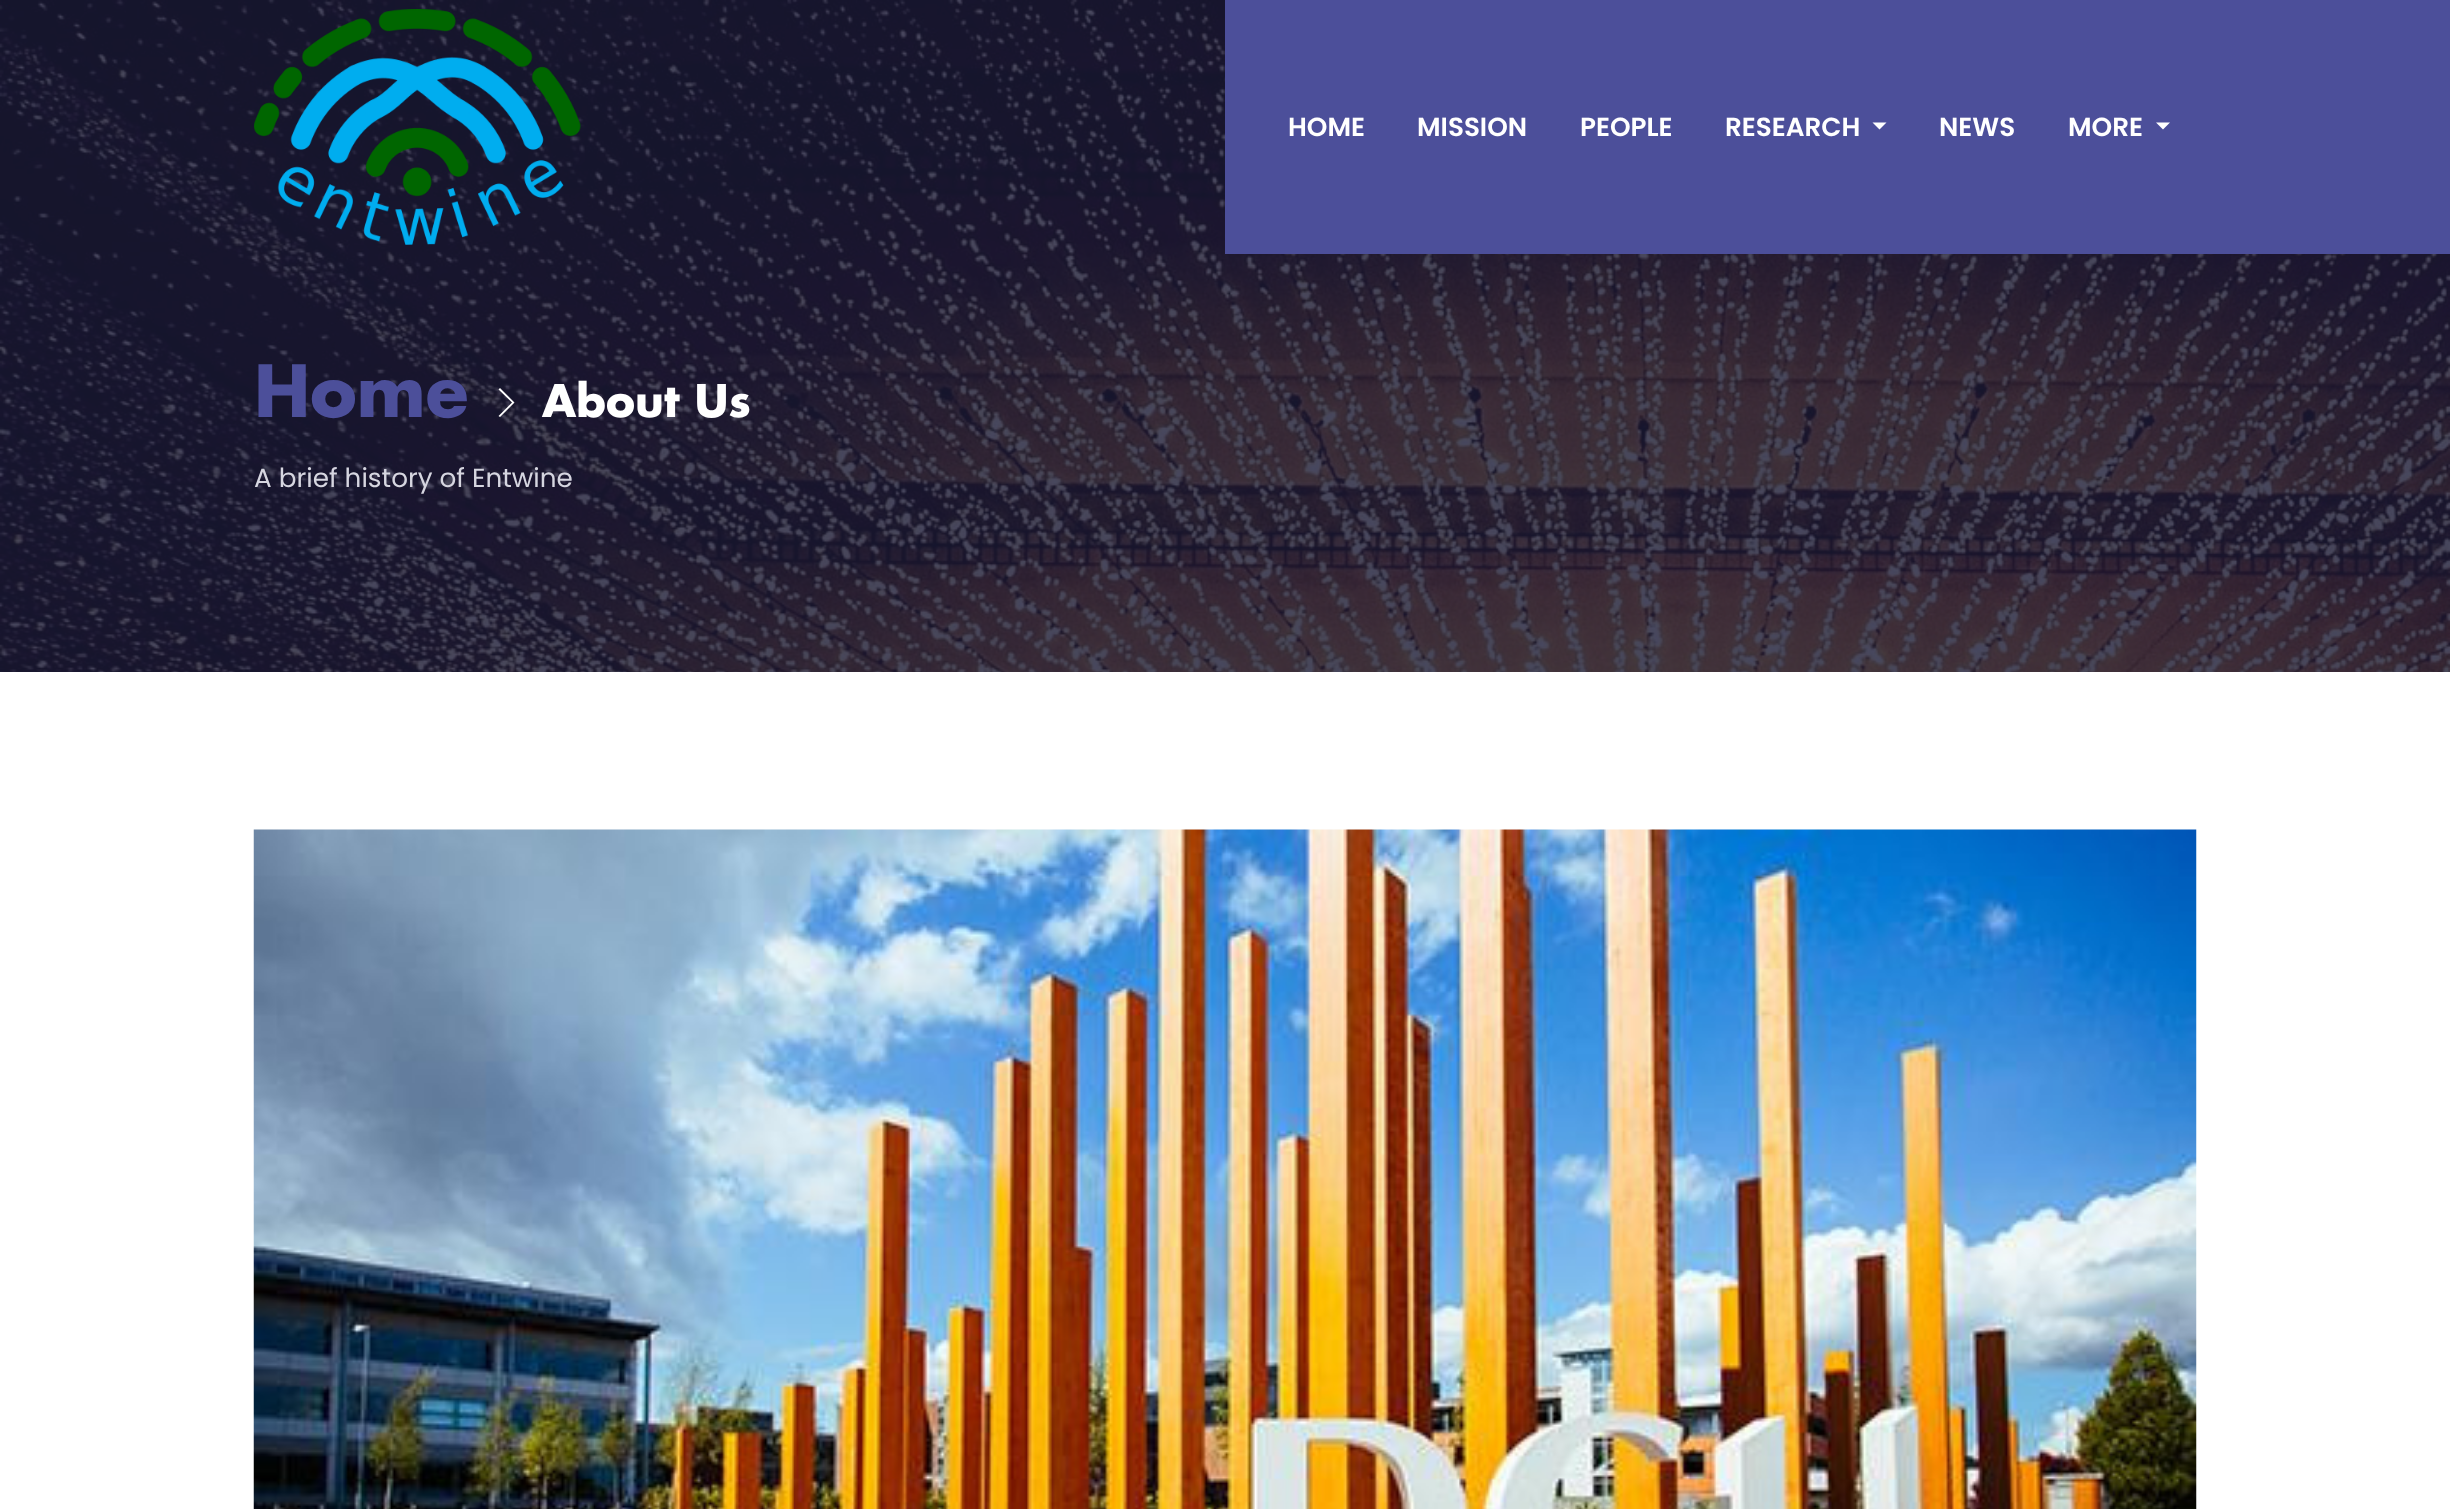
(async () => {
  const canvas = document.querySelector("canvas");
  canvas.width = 2450;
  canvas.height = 1509;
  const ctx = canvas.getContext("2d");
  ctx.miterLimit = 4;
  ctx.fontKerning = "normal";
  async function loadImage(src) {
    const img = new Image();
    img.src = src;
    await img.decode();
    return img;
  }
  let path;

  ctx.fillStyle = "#ffffff";
  ctx.fillRect(0, 0, 2450, 1509);
  ctx.drawImage(await loadImage("img/2.png"), 0, 0, 2450, 672);
  ctx.fillStyle = "#4c4f9a";
  ctx.fillRect(1225, 0, 1225, 254);
  ctx.drawImage(await loadImage("img/1.png"), 254, 9, 327, 236);
  ctx.fillStyle = "#ffffff";
  path = new Path2D("M1872.5 122.5H1886.5L1879.5 129.5Z");
  ctx.fill(path);
  path = new Path2D("M2156 122.5H2170L2163 129.5Z");
  ctx.fill(path);
  path = new Path2D("M514.5 402.5L500 417L498.5 416L512 402.5L498.5 389.5L500 388Z");
  ctx.fill(path);
  ctx.drawImage(await loadImage("img/3.png"), 253, 829, 1944, 680);
  ctx.font = "600 26.25px Poppins";
  for (const [text, x, y] of [
    ["HOME", 1288, 136],
    ["MISSION", 1417, 136],
    ["PEOPLE", 1580, 136],
    ["RESEARCH", 1725, 136],
    ["NEWS", 1939, 136],
    ["MORE", 2068, 136],
  ]) {
    ctx.fillText(text, x, y);
  }
  ctx.font = "bold 70px Futura";
  ctx.fillStyle = "#4c4f9a";
  ctx.fillText("Home", 254, 417);
  ctx.font = "bold 43.75px Futura";
  ctx.fillStyle = "#ffffff";
  ctx.fillText("About Us", 542, 417);
  ctx.font = "26.25px Poppins";
  ctx.fillStyle = "#d6d6e0";
  ctx.fillText("A brief history of Entwine", 254, 487);
})();
